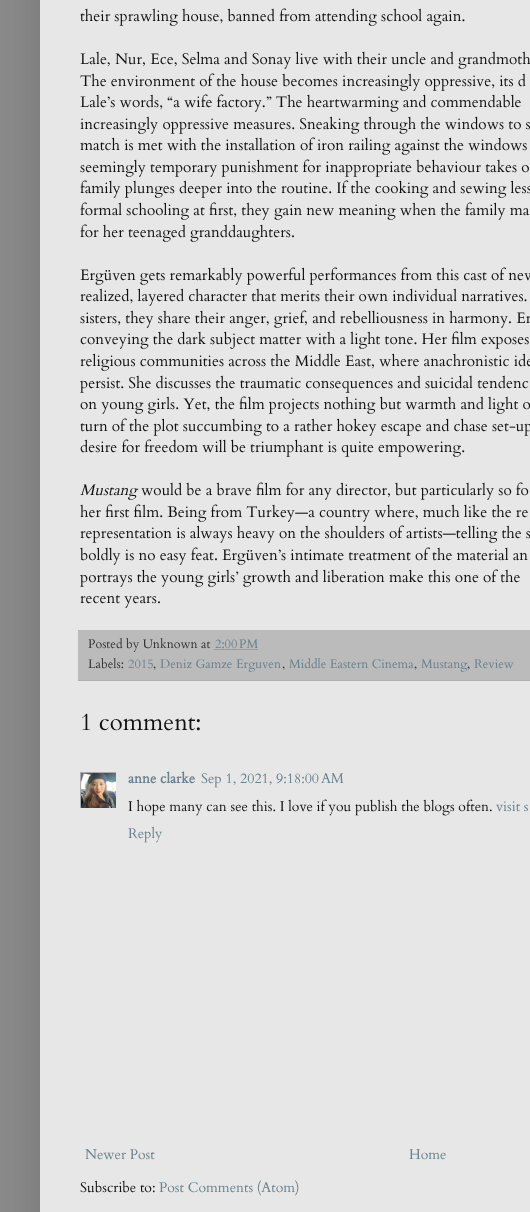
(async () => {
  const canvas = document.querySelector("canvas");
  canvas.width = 530;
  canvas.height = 1212;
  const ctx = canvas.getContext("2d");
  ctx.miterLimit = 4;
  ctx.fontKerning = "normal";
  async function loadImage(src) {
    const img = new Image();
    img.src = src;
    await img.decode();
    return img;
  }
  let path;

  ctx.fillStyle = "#8a8a8a";
  ctx.fillRect(0, 0, 530, 1212);
  ctx.fillStyle = "rgba(0, 0, 0, 0.15)";
  ctx.filter = "blur(20px)";
  ctx.beginPath();
  ctx.rect(40, -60, 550, 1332);
  ctx.fill();
  ctx.filter = "none";
  for (const [x, y, w, h, color] of [
    [40, 0, 490, 1212, "#e7e7e7"],
    [78, 630, 452, 50, "#bbbbbb"],
    [78, 680, 452, 1, "#b0b0b0"],
  ]) {
    ctx.fillStyle = color;
    ctx.fillRect(x, y, w, h);
  }
  path = new Path2D("M214.5 649.5H258");
  ctx.strokeStyle = "#6a818e";
  ctx.setLineDash([1, 1]);
  ctx.stroke(path);
  ctx.save();
  ctx.beginPath();
  ctx.rect(80, 772, 36, 36);
  ctx.clip();
  ctx.strokeStyle = "#aaaaaa";
  ctx.setLineDash([]);
  ctx.strokeRect(80.5, 772.5, 37, 37);
  ctx.restore();
  ctx.drawImage(await loadImage("img/1.png"), 81, 773, 35, 35);
  ctx.font = "15.4px Cardo";
  ctx.fillStyle = "#111111";
  for (const [text, x, y] of [
    ["their sprawling house, banned from attending school again.", 80, 21],
    ["Lale, Nur, Ece, Selma and Sonay live with their uncle and grandmoth", 80, 64],
    ["The environment of the house becomes increasingly oppressive, its d", 80, 86],
    ["Lale’s words, “a wife factory.” The heartwarming and commendable", 80, 107],
    ["increasingly oppressive measures. Sneaking through the windows to s", 80, 129],
    ["match is met with the installation of iron railing against the windows", 80, 150],
    ["seemingly temporary punishment for inappropriate behaviour takes o", 80, 172],
    ["family plunges deeper into the routine. If the cooking and sewing less", 80, 193],
    ["formal schooling at first, they gain new meaning when the family ma", 80, 215],
    ["for her teenaged granddaughters.", 80, 237],
    ["Ergüven gets remarkably powerful performances from this cast of new", 80, 280],
    ["realized, layered character that merits their own individual narratives.", 80, 301],
    ["sisters, they share their anger, grief, and rebelliousness in harmony. Er", 80, 323],
    ["conveying the dark subject matter with a light tone. Her film exposes", 80, 344],
    ["religious communities across the Middle East, where anachronistic ide", 80, 366],
    ["persist. She discusses the traumatic consequences and suicidal tendenc", 80, 388],
    ["on young girls. Yet, the film projects nothing but warmth and light o", 80, 409],
    ["turn of the plot succumbing to a rather hokey escape and chase set-up", 80, 431],
    ["desire for freedom will be triumphant is quite empowering.", 80, 452],
  ]) {
    ctx.fillText(text, x, y);
  }
  ctx.font = "italic 15.4px Cardo";
  ctx.fillText("Mustang", 80, 495);
  ctx.font = "15.4px Cardo";
  for (const [text, x, y] of [
    ["would be a brave film for any director, but particularly so fo", 141, 495],
    ["her first film. Being from Turkey—a country where, much like the re", 80, 517],
    ["representation is always heavy on the shoulders of artists—telling the s", 80, 538],
    ["boldly is no easy feat. Ergüven’s intimate treatment of the material an", 80, 560],
    ["portrays the young girls’ growth and liberation make this one of the", 80, 582],
    ["recent years.", 80, 603],
  ]) {
    ctx.fillText(text, x, y);
  }
  ctx.font = "12.5px Cardo";
  ctx.fillStyle = "#323233";
  ctx.fillText("Posted by Unknown at", 88, 648);
  ctx.fillStyle = "#6a818e";
  ctx.fillText("2:00 PM", 215, 648);
  ctx.fillStyle = "#323233";
  ctx.fillText("Labels:", 88, 668);
  ctx.fillStyle = "#6a818e";
  ctx.fillText("2015", 128, 668);
  ctx.fillStyle = "#323233";
  ctx.fillText(",", 153, 668);
  ctx.fillStyle = "#6a818e";
  ctx.fillText("Deniz Gamze Erguven", 160, 668);
  ctx.fillStyle = "#323233";
  ctx.fillText(",", 282, 668);
  ctx.fillStyle = "#6a818e";
  ctx.fillText("Middle Eastern Cinema", 289, 668);
  ctx.fillStyle = "#323233";
  ctx.fillText(",", 414, 668);
  ctx.fillStyle = "#6a818e";
  ctx.fillText("Mustang", 421, 668);
  ctx.fillStyle = "#323233";
  ctx.fillText(",", 467, 668);
  ctx.fillStyle = "#6a818e";
  ctx.fillText("Review", 474, 668);
  ctx.font = "24px Cardo";
  ctx.fillStyle = "#111111";
  ctx.fillText("1 comment:", 80, 730);
  ctx.font = "bold 14px Cardo";
  ctx.fillStyle = "#6a818e";
  ctx.fillText("anne clarke", 128, 783);
  ctx.font = "14px Cardo";
  ctx.fillText("Sep 1, 2021, 9:18:00 AM", 201, 783);
  ctx.fillStyle = "#111111";
  ctx.fillText("I hope many can see this. I love if you publish the blogs often.", 128, 811);
  ctx.fillStyle = "#6a818e";
  for (const [text, x, y] of [
    ["visit s", 496, 811],
    ["Reply", 128, 838],
    ["Newer Post", 85, 1159],
    ["Home", 409, 1159],
  ]) {
    ctx.fillText(text, x, y);
  }
  ctx.fillStyle = "#111111";
  ctx.fillText("Subscribe to:", 80, 1192);
  ctx.fillStyle = "#6a818e";
  ctx.fillText("Post Comments (Atom)", 159, 1192);
})();
